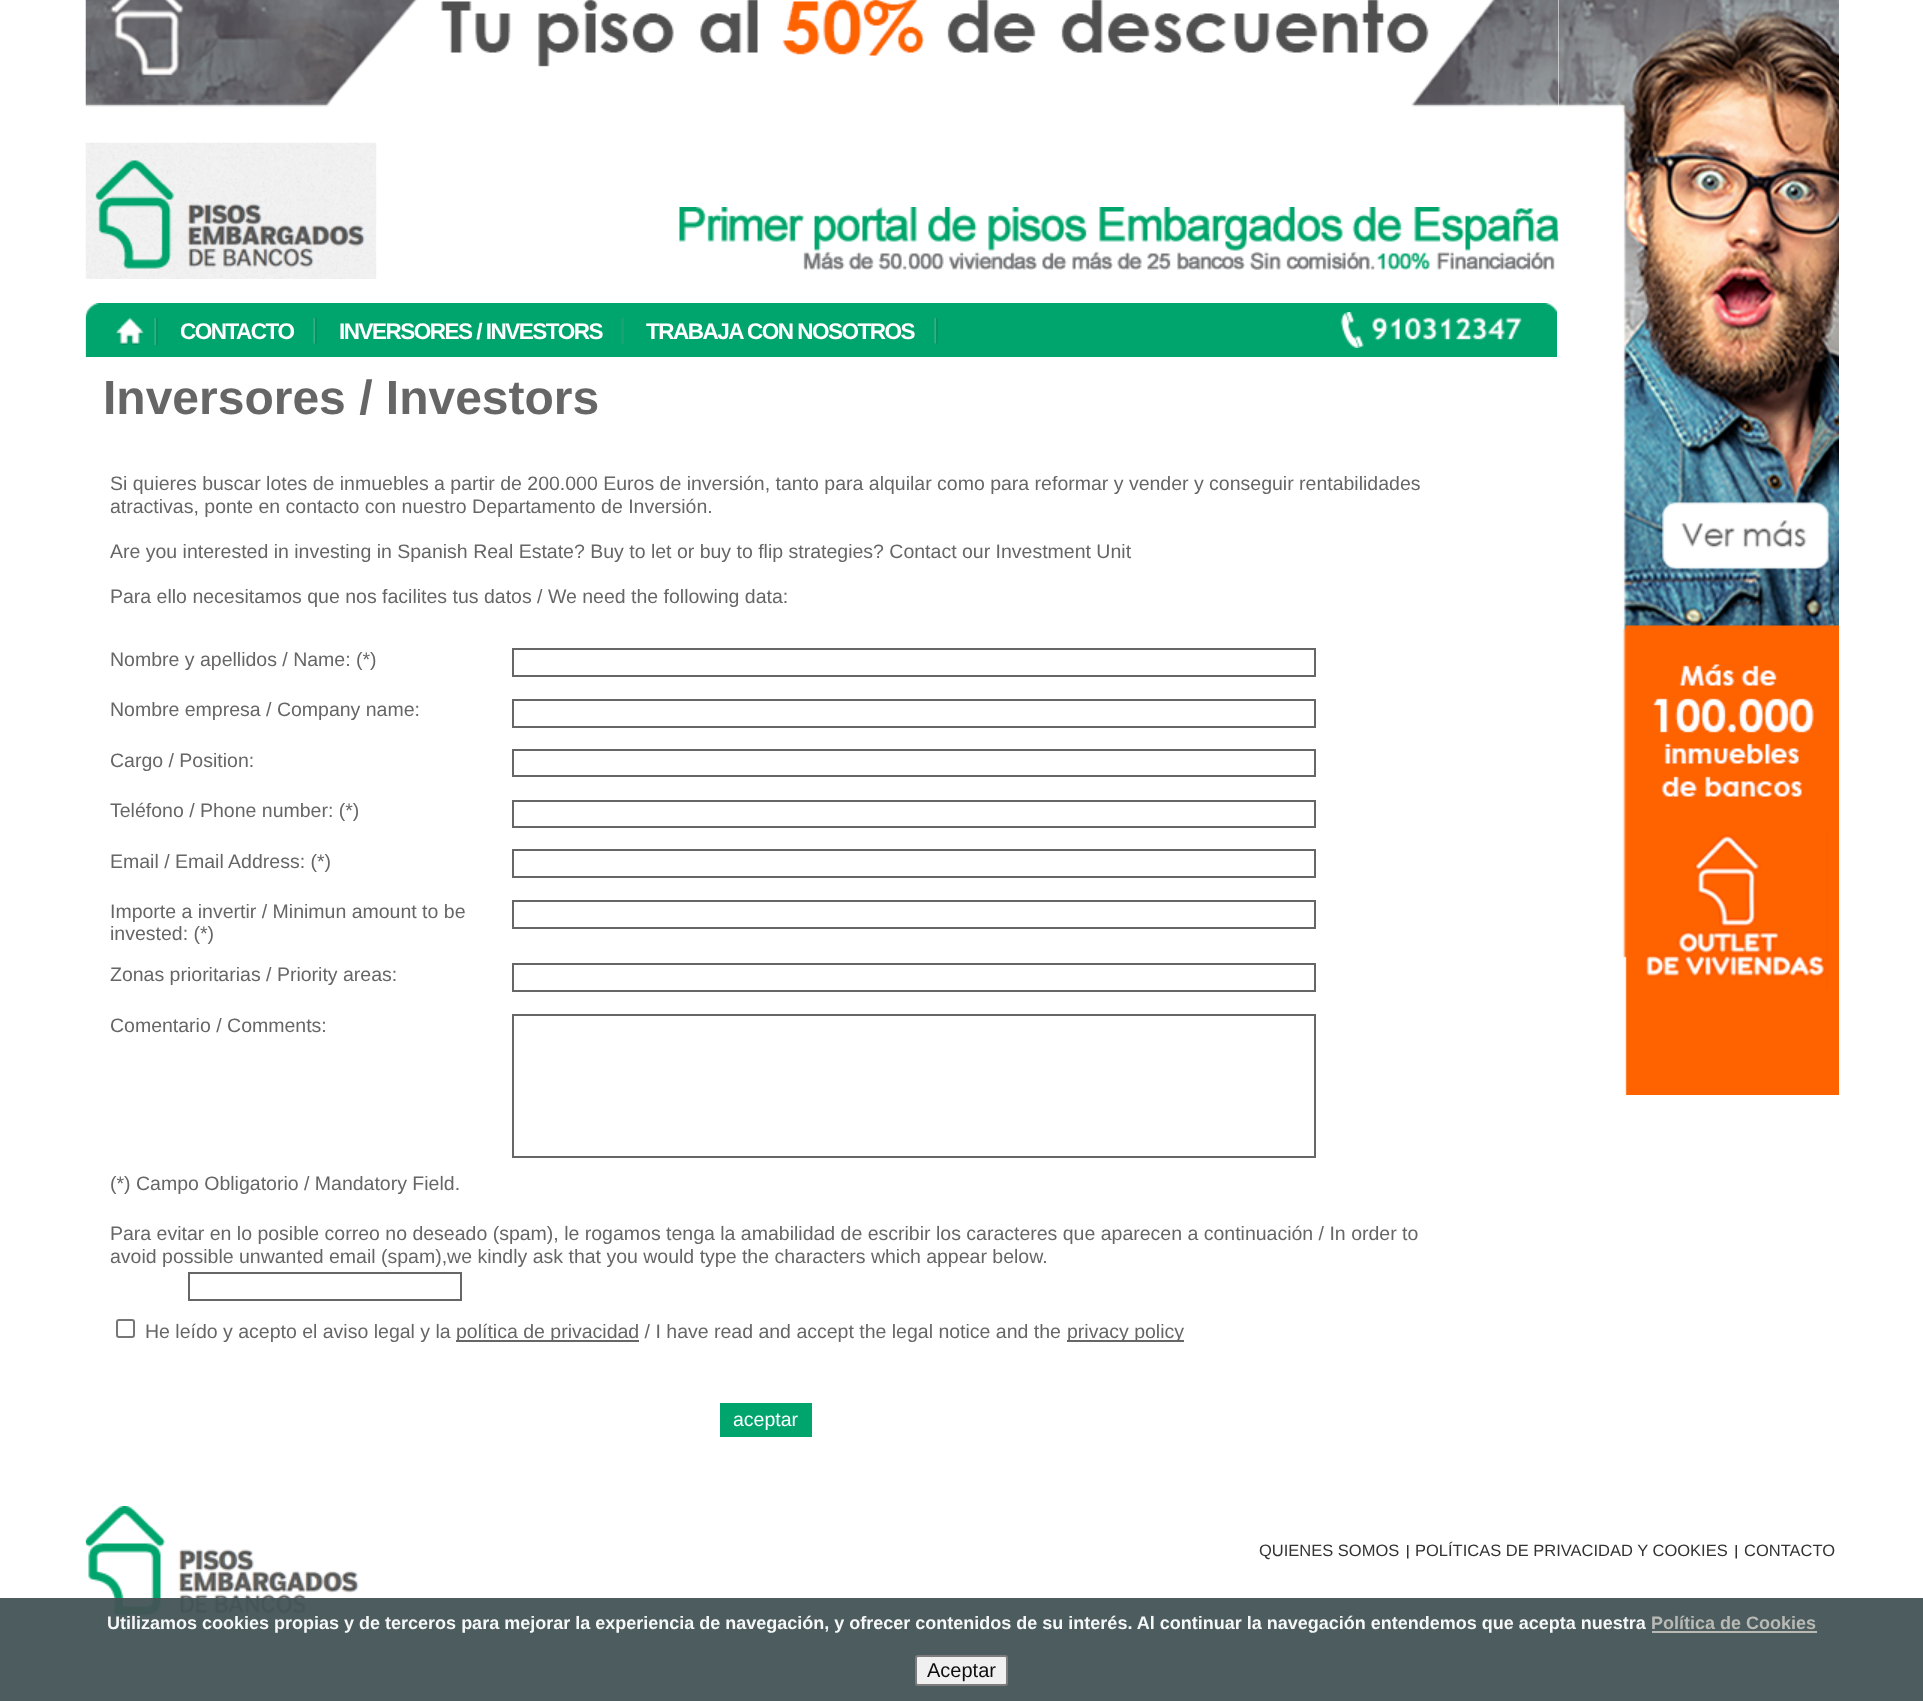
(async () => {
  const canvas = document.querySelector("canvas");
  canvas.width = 1923;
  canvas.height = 1701;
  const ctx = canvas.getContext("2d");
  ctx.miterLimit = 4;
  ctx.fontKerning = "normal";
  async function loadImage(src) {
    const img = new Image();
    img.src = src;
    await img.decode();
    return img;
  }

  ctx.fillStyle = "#ffffff";
  ctx.fillRect(0, 0, 1923, 1701);
  ctx.drawImage(await loadImage("img/9.png"), 1558, 0, 281, 1095);
  ctx.drawImage(await loadImage("img/1.png"), 85, 0, 1474, 107);
  ctx.drawImage(await loadImage("img/2.png"), 85, 142, 292, 137);
  ctx.drawImage(await loadImage("img/3.png"), 679, 207, 880, 63);
  ctx.drawImage(await loadImage("img/4.png"), 85, 303, 1472, 54);
  ctx.drawImage(await loadImage("img/5.png"), 154, 318, 4, 27);
  ctx.drawImage(await loadImage("img/6.png"), 115, 318, 29, 27);
  ctx.drawImage(await loadImage("img/7.png"), 313, 318, 4, 26);
  ctx.fillStyle = "#1d9f74";
  ctx.fillRect(621, 318, 3, 26);
  ctx.drawImage(await loadImage("img/7.png"), 934, 318, 4, 26);
  ctx.drawImage(await loadImage("img/8.png"), 1340, 312, 182, 36);
  ctx.strokeStyle = "#666666";
  ctx.lineWidth = 2;
  ctx.strokeRect(513, 649, 802, 27);
  ctx.strokeRect(513, 700, 802, 27);
  ctx.strokeRect(513, 750, 802, 26);
  ctx.strokeRect(513, 801, 802, 26);
  ctx.strokeRect(513, 850, 802, 27);
  ctx.strokeRect(513, 901, 802, 27);
  ctx.strokeRect(513, 964, 802, 27);
  ctx.strokeRect(513, 1015, 802, 142);
  ctx.strokeRect(189, 1273, 272, 27);
  ctx.beginPath();
  ctx.roundRect(117, 1320, 17, 17, 2);
  ctx.strokeStyle = "#767676";
  ctx.stroke();
  for (const [x, y, w, h, color] of [
    [456, 1340, 183, 2, "#666666"],
    [1067, 1340, 117, 2, "#666666"],
    [720, 1403, 92, 34, "#00a56d"],
  ]) {
    ctx.fillStyle = color;
    ctx.fillRect(x, y, w, h);
  }
  ctx.drawImage(await loadImage("img/10.png"), 0, 1689, 1923, 12);
  ctx.drawImage(await loadImage("img/11.png"), 85, 1506, 274, 110);
  ctx.drawImage(await loadImage("img/12.png"), 1407, 1545, 2, 14);
  ctx.drawImage(await loadImage("img/13.png"), 1735, 1545, 2, 14);
  ctx.fillStyle = "rgba(67, 84, 86, 0.95)";
  ctx.fillRect(0, 1598, 1923, 103);
  ctx.fillStyle = "#babab5";
  ctx.fillRect(1652, 1631, 165, 2);
  ctx.fillStyle = "#f0f0f0";
  ctx.beginPath();
  ctx.roundRect(916, 1656, 91, 29, 2);
  ctx.fill();
  ctx.strokeStyle = "#7d7d7d";
  ctx.stroke();
  ctx.letterSpacing = "-1.5px";
  ctx.font = "bold 22.5px Liberation Sans";
  ctx.fillStyle = "#ffffff";
  for (const [text, x, y] of [
    ["CONTACTO", 180, 339],
    ["INVERSORES / INVESTORS", 339, 339],
    ["TRABAJA CON NOSOTROS", 646, 339],
  ]) {
    ctx.fillText(text, x, y);
  }
  ctx.letterSpacing = "0px";
  ctx.font = "bold 48px Liberation Sans";
  ctx.fillStyle = "#666666";
  ctx.fillText("Inversores / Investors", 103, 414);
  ctx.font = "19.5px Liberation Sans";
  for (const [text, x, y] of [
    ["Si quieres buscar lotes de inmuebles a partir de 200.000 Euros de inversión, tanto para alquilar como para reformar y vender y conseguir rentabilidades", 110, 490],
    ["atractivas, ponte en contacto con nuestro Departamento de Inversión.", 110, 513],
    ["Are you interested in investing in Spanish Real Estate? Buy to let or buy to flip strategies? Contact our Investment Unit", 110, 558],
    ["Para ello necesitamos que nos facilites tus datos / We need the following data:", 110, 603],
    ["Nombre y apellidos / Name: (*)", 110, 666],
    ["Nombre empresa / Company name:", 110, 716],
    ["Cargo / Position:", 110, 767],
    ["Teléfono / Phone number: (*)", 110, 817],
    ["Email / Email Address: (*)", 110, 868],
    ["Importe a invertir / Minimun amount to be", 110, 918],
    ["invested: (*)", 110, 940],
    ["Zonas prioritarias / Priority areas:", 110, 981],
    ["Comentario / Comments:", 110, 1032],
    ["(*) Campo Obligatorio / Mandatory Field.", 110, 1190],
    ["Para evitar en lo posible correo no deseado (spam), le rogamos tenga la amabilidad de escribir los caracteres que aparecen a continuación / In order to", 110, 1240],
    ["avoid possible unwanted email (spam),we kindly ask that you would type the characters which appear below.", 110, 1263],
    ["He leído y acepto el aviso legal y la", 145, 1338],
    ["política de privacidad / I have read and accept the legal notice and the", 456, 1338],
    ["privacy policy", 1067, 1338],
  ]) {
    ctx.fillText(text, x, y);
  }
  ctx.fillStyle = "#ffffff";
  ctx.fillText("aceptar", 733, 1426);
  ctx.font = "16.5px Liberation Sans";
  ctx.fillStyle = "#333333";
  for (const [text, x, y] of [
    ["QUIENES SOMOS", 1259, 1556],
    ["POLÍTICAS DE PRIVACIDAD Y COOKIES", 1415, 1556],
    ["CONTACTO", 1744, 1556],
  ]) {
    ctx.fillText(text, x, y);
  }
  ctx.font = "bold 18px Liberation Sans";
  ctx.fillStyle = "#f6f7f7";
  ctx.fillText("Utilizamos cookies propias y de terceros para mejorar la experiencia de navegación, y ofrecer contenidos de su interés. Al continuar la navegación entendemos que acepta nuestra", 107, 1629);
  ctx.fillStyle = "#babab5";
  ctx.fillText("Política de Cookies", 1651, 1629);
  ctx.font = "20px Liberation Sans";
  ctx.fillStyle = "#0d0d0d";
  ctx.fillText("Aceptar", 927, 1677);
})();
